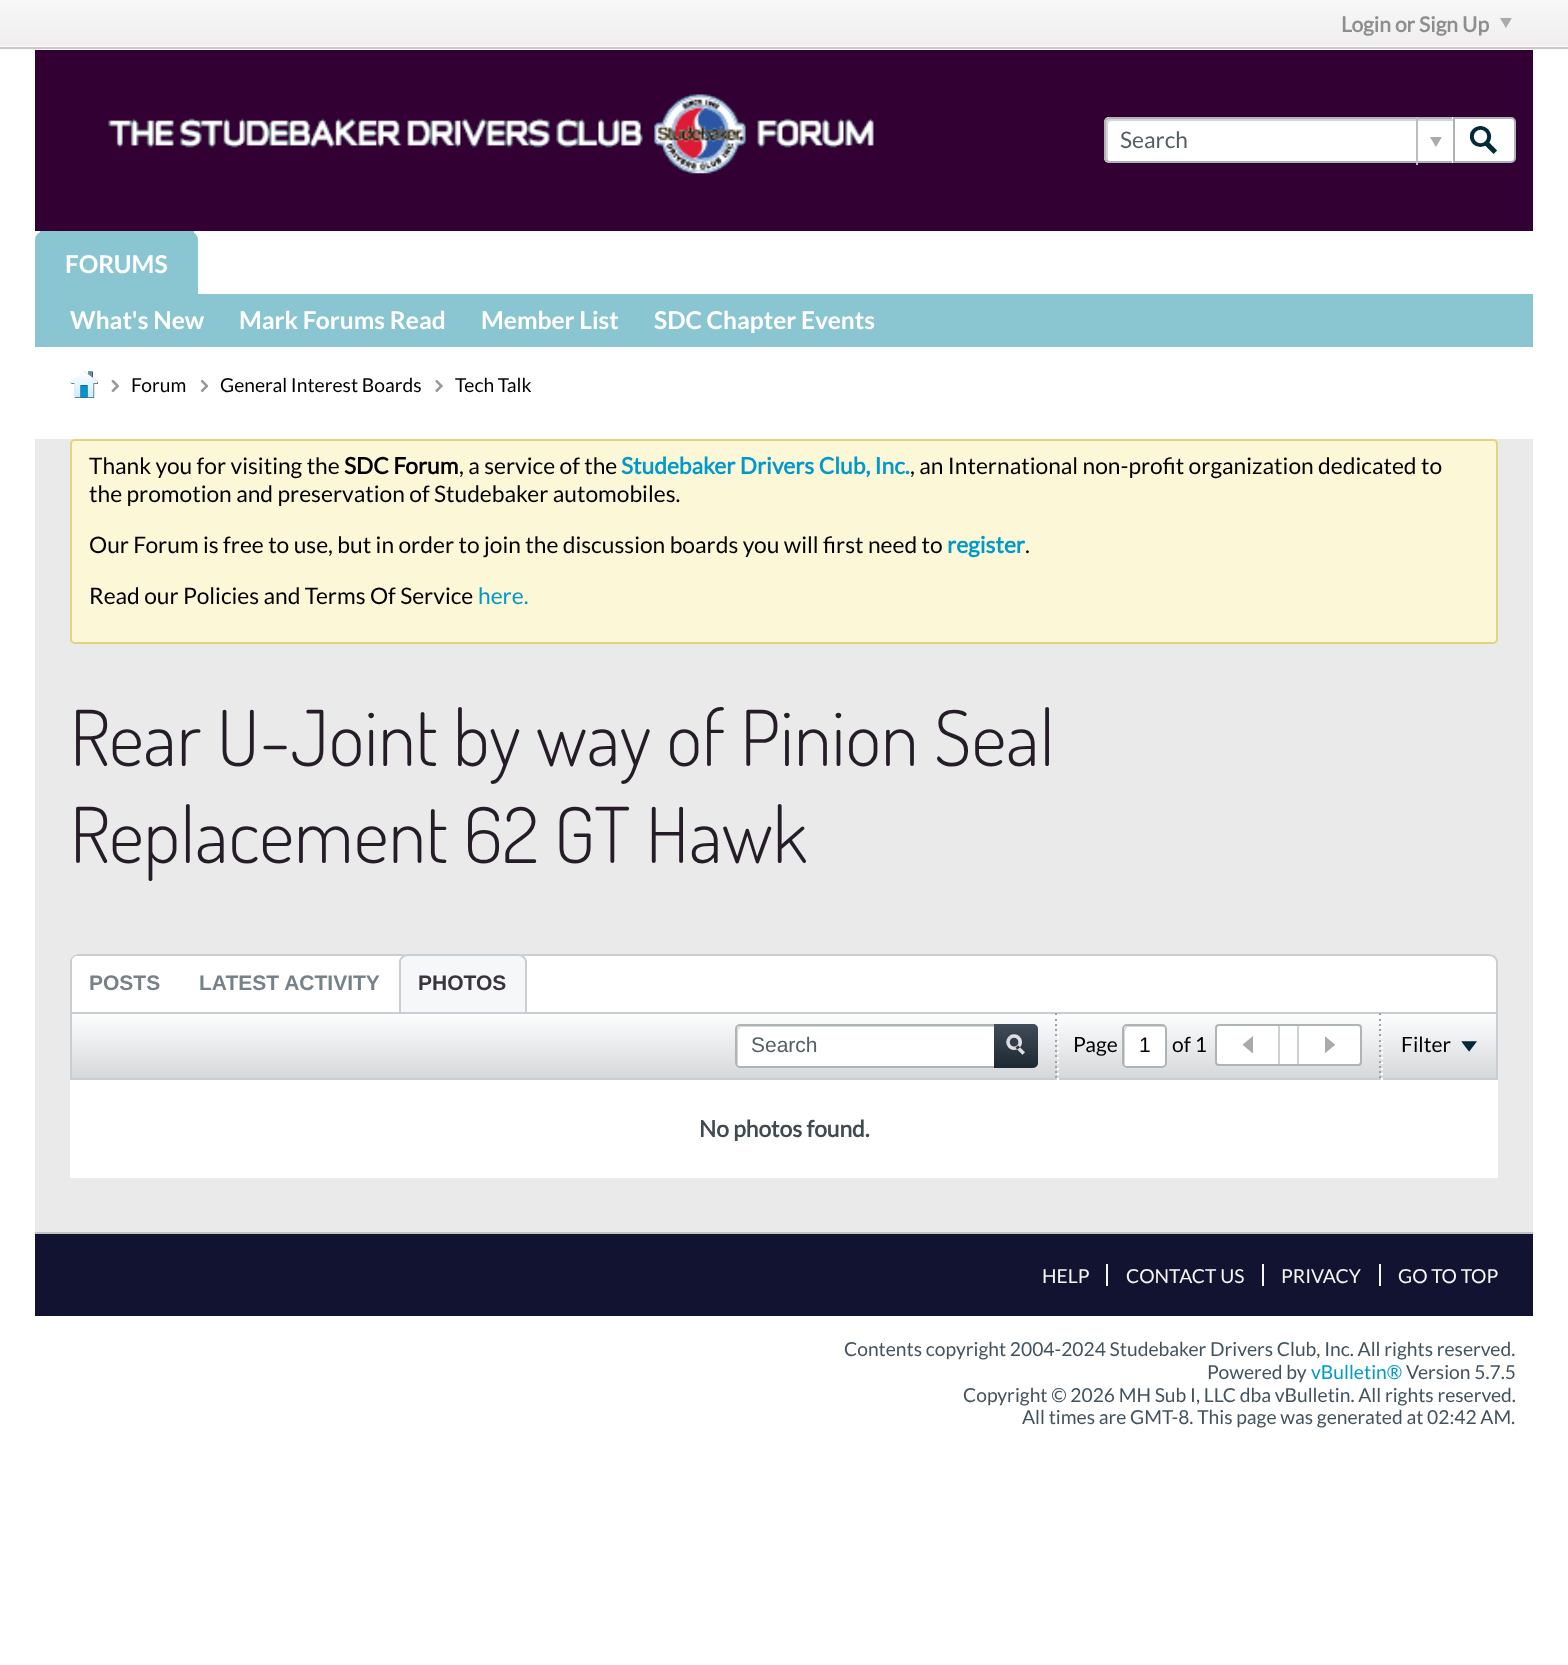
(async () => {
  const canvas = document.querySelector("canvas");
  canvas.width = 1568;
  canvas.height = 1665;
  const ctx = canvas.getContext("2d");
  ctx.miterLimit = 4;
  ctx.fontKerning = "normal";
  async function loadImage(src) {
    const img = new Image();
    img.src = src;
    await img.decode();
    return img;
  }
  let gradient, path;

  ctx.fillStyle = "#ffffff";
  ctx.fillRect(0, 0, 1568, 1665);
  gradient = ctx.createLinearGradient(784, 0, 784, 49);
  gradient.addColorStop(0, "#f8f8f8");
  gradient.addColorStop(1, "#efedee");
  ctx.fillStyle = gradient;
  ctx.fillRect(0, 0, 1568, 46);
  ctx.drawImage(await loadImage("img/1.png"), 1500, 18, 12, 10);
  for (const [x, y, w, h, color] of [
    [0, 46, 1568, 4, "#fafafa"],
    [0, 47, 1568, 2, "#c7c8c9"],
    [35, 50, 1498, 181, "#330033"],
  ]) {
    ctx.fillStyle = color;
    ctx.fillRect(x, y, w, h);
  }
  ctx.drawImage(await loadImage("img/2.png"), 108, 94, 766, 80);
  ctx.fillStyle = "#ffffff";
  ctx.beginPath();
  ctx.roundRect(1104, 117, 349, 46, [5, 0, 0, 5]);
  ctx.fill();
  ctx.fillStyle = "#d5d5d5";
  path = new Path2D("M1111 121H1453V119H1110C1108 119 1106 121 1106 123V157C1106 159 1107 160 1108 161V130C1108 127 1107 121 1111 121Z");
  ctx.fill(path);
  ctx.fillStyle = "#aeb3b6";
  path = new Path2D("M1110 117H1452V163H1110C1107 163 1104 160 1104 158V122C1104 120 1107 117 1110 117ZM1110 119H1452V161H1110C1108 161 1106 159 1106 158V122C1106 121 1108 119 1110 119Z");
  ctx.fill(path, "evenodd");
  ctx.fillStyle = "#bdbdbd";
  ctx.fillRect(1416, 117, 2, 48);
  ctx.drawImage(await loadImage("img/3.png"), 1430, 137, 12, 10);
  ctx.fillStyle = "#ffffff";
  ctx.beginPath();
  ctx.roundRect(1454, 118, 61, 44, [0, 4, 4, 0]);
  ctx.fill();
  ctx.strokeStyle = "#aeb3b6";
  ctx.lineWidth = 2;
  ctx.stroke();
  ctx.drawImage(await loadImage("img/4.png"), 1470, 126, 27, 28);
  ctx.fillStyle = "#8ac5d2";
  ctx.beginPath();
  ctx.roundRect(35, 231, 163, 63, [9, 9, 0, 0]);
  ctx.fill();
  ctx.fillRect(40, 231, 154, 2);
  ctx.fillRect(35, 294, 1498, 53);
  ctx.drawImage(await loadImage("img/5.png"), 70, 371, 28, 27);
  ctx.drawImage(await loadImage("img/6.png"), 111, 380, 8, 12);
  ctx.drawImage(await loadImage("img/7.png"), 200, 380, 8, 12);
  ctx.drawImage(await loadImage("img/8.png"), 435, 380, 8, 12);
  ctx.fillStyle = "#eaeaea";
  ctx.fillRect(35, 439, 1498, 793);
  ctx.fillStyle = "#fcf7d7";
  ctx.beginPath();
  ctx.roundRect(71, 440, 1426, 203, 4);
  ctx.fill();
  ctx.strokeStyle = "#e1d47e";
  ctx.stroke();
  ctx.fillStyle = "#ffffff";
  ctx.beginPath();
  ctx.roundRect(70, 954, 1428, 58, [9, 9, 0, 0]);
  ctx.fill();
  ctx.fillStyle = "#c9ced2";
  path = new Path2D("M79 954H1489C1494 954 1498 958 1498 962V1012H70V962C70 958 74 954 79 954ZM79 956H1489C1493 956 1496 959 1496 962V1012H72V962C72 959 75 956 79 956Z");
  ctx.fill(path, "evenodd");
  ctx.fillStyle = "#ffffff";
  ctx.beginPath();
  ctx.roundRect(72, 956, 455, 56, [5, 5, 0, 0]);
  ctx.fill();
  ctx.fillStyle = "#f5f7f9";
  ctx.beginPath();
  ctx.roundRect(399, 954, 128, 58, [9, 9, 0, 0]);
  ctx.fill();
  ctx.fillStyle = "#c9ced2";
  path = new Path2D("M408 954H518C523 954 527 958 527 962V1012H399V962C399 958 403 954 408 954ZM408 956H518C522 956 525 959 525 962V1012H401V962C401 959 404 956 408 956Z");
  ctx.fill(path, "evenodd");
  gradient = ctx.createLinearGradient(784, 1013, 784, 1078);
  gradient.addColorStop(0, "#fefeff");
  gradient.addColorStop(1, "#d5d8da");
  ctx.fillStyle = gradient;
  ctx.fillRect(72, 1014, 1424, 64);
  ctx.strokeStyle = "#c9ced2";
  ctx.strokeRect(71, 1013, 1426, 66);
  ctx.fillStyle = "#ffffff";
  ctx.beginPath();
  ctx.roundRect(735, 1024, 303, 44, 5);
  ctx.fill();
  ctx.fillStyle = "#d5d5d5";
  path = new Path2D("M742 1027H1035C1034 1026 1033 1026 1032 1026H741C739 1026 737 1028 737 1030V1062C737 1063 737 1064 738 1065V1036C738 1034 737 1027 742 1027Z");
  ctx.fill(path);
  ctx.beginPath();
  ctx.roundRect(736, 1025, 301, 42, 4);
  ctx.strokeStyle = "#aeb3b6";
  ctx.stroke();
  gradient = ctx.createLinearGradient(1016, 1024, 1016, 1068);
  gradient.addColorStop(0, "#404d5a");
  gradient.addColorStop(1, "#1c2931");
  ctx.fillStyle = gradient;
  ctx.beginPath();
  ctx.roundRect(994, 1024, 44, 44, [0, 5, 5, 0]);
  ctx.fill();
  ctx.drawImage(await loadImage("img/9.png"), 1006, 1034, 19, 21);
  for (const [x, y, w, h, color] of [
    [1055, 1013, 2, 2, "#9ba3a9"],
    [1055, 1019, 2, 2, "#9ba3a9"],
    [1055, 1024, 2, 2, "#9ba3a9"],
    [1055, 1029, 2, 2, "#9ba3a9"],
    [1055, 1034, 2, 2, "#9ba3a9"],
    [1055, 1040, 2, 2, "#9ba3a9"],
    [1055, 1045, 2, 2, "#9ba3a9"],
    [1055, 1050, 2, 2, "#9ba3a9"],
    [1055, 1055, 2, 2, "#9ba3a9"],
    [1055, 1061, 2, 2, "#9ba3a9"],
    [1055, 1066, 2, 2, "#9ba3a9"],
    [1055, 1071, 2, 2, "#9ba3a9"],
    [1055, 1076, 2, 2, "#9ba3a9"],
    [1057, 1015, 2, 2, "#ffffff"],
    [1057, 1020, 2, 2, "#ffffff"],
    [1057, 1026, 2, 2, "#ffffff"],
    [1057, 1031, 2, 2, "#ffffff"],
    [1057, 1036, 2, 2, "#ffffff"],
    [1057, 1041, 2, 2, "#ffffff"],
    [1057, 1047, 2, 2, "#ffffff"],
    [1057, 1052, 2, 2, "#ffffff"],
    [1057, 1057, 2, 2, "#ffffff"],
    [1057, 1062, 2, 2, "#ffffff"],
    [1057, 1068, 2, 2, "#ffffff"],
    [1057, 1073, 2, 2, "#ffffff"],
    [1057, 1078, 2, 2, "#ffffff"],
  ]) {
    ctx.fillStyle = color;
    ctx.fillRect(x, y, w, h);
  }
  ctx.beginPath();
  ctx.roundRect(1122, 1024, 45, 44, 5);
  ctx.fill();
  ctx.fillStyle = "#d5d5d5";
  path = new Path2D("M1129 1027H1165C1164 1026 1163 1026 1162 1026H1128C1126 1026 1124 1028 1124 1030V1062C1124 1063 1124 1064 1125 1065V1036C1125 1034 1124 1027 1129 1027Z");
  ctx.fill(path);
  ctx.beginPath();
  ctx.roundRect(1123, 1025, 43, 42, 4);
  ctx.stroke();
  ctx.fillStyle = "#ffffff";
  ctx.beginPath();
  ctx.roundRect(1216, 1025, 145, 40, 3);
  ctx.fill();
  ctx.stroke();
  ctx.fillStyle = "#cdd1d4";
  ctx.fillRect(1278, 1026, 2, 38);
  ctx.drawImage(await loadImage("img/10.png"), 1243, 1036, 10, 18);
  ctx.fillRect(1297, 1026, 2, 38);
  ctx.drawImage(await loadImage("img/11.png"), 1325, 1036, 10, 17);
  for (const [x, y, w, h, color] of [
    [1379, 1013, 2, 2, "#9ba3a9"],
    [1379, 1019, 2, 2, "#9ba3a9"],
    [1379, 1024, 2, 2, "#9ba3a9"],
    [1379, 1029, 2, 2, "#9ba3a9"],
    [1379, 1034, 2, 2, "#9ba3a9"],
    [1379, 1040, 2, 2, "#9ba3a9"],
    [1379, 1045, 2, 2, "#9ba3a9"],
    [1379, 1050, 2, 2, "#9ba3a9"],
    [1379, 1055, 2, 2, "#9ba3a9"],
    [1379, 1061, 2, 2, "#9ba3a9"],
    [1379, 1066, 2, 2, "#9ba3a9"],
    [1379, 1071, 2, 2, "#9ba3a9"],
    [1379, 1076, 2, 2, "#9ba3a9"],
    [1381, 1015, 2, 2, "#ffffff"],
    [1381, 1020, 2, 2, "#ffffff"],
    [1381, 1026, 2, 2, "#ffffff"],
    [1381, 1031, 2, 2, "#ffffff"],
    [1381, 1036, 2, 2, "#ffffff"],
    [1381, 1041, 2, 2, "#ffffff"],
    [1381, 1047, 2, 2, "#ffffff"],
    [1381, 1052, 2, 2, "#ffffff"],
    [1381, 1057, 2, 2, "#ffffff"],
    [1381, 1062, 2, 2, "#ffffff"],
    [1381, 1068, 2, 2, "#ffffff"],
    [1381, 1073, 2, 2, "#ffffff"],
    [1381, 1078, 2, 2, "#ffffff"],
  ]) {
    ctx.fillStyle = color;
    ctx.fillRect(x, y, w, h);
  }
  ctx.drawImage(await loadImage("img/12.png"), 1461, 1041, 16, 11);
  for (const [x, y, w, h, color] of [
    [70, 1080, 1428, 98, "#ffffff"],
    [35, 1234, 1498, 82, "#121231"],
    [35, 1232, 1498, 2, "#c2c2c2"],
    [1106, 1264, 2, 22, "#f6f6f6"],
    [1262, 1264, 2, 22, "#f6f6f6"],
    [1379, 1264, 2, 22, "#f6f6f6"],
  ]) {
    ctx.fillStyle = color;
    ctx.fillRect(x, y, w, h);
  }
  ctx.font = "bold 21px 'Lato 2'";
  ctx.fillStyle = "#8e8e8e";
  ctx.fillText("Login or Sign Up", 1341, 32);
  ctx.font = "22.75px Lato";
  ctx.fillStyle = "#556065";
  ctx.fillText("Search", 1120, 148);
  ctx.font = "bold 24.5px Lato";
  ctx.fillStyle = "#ffffff";
  for (const [text, x, y] of [
    ["FORUMS", 65, 273],
    ["What's New", 70, 329],
    ["Mark Forums Read", 239, 329],
    ["Member List", 481, 329],
    ["SDC Chapter Events", 654, 329],
  ]) {
    ctx.fillText(text, x, y);
  }
  ctx.font = "19.25px Lato";
  ctx.fillStyle = "#000000";
  for (const [text, x, y] of [
    ["Forum", 131, 392],
    ["General Interest Boards", 220, 392],
    ["Tech Talk", 455, 392],
  ]) {
    ctx.fillText(text, x, y);
  }
  ctx.font = "22.75px Lato";
  ctx.fillText("Thank you for visiting the", 89, 474);
  ctx.font = "bold 22.75px 'Lato 2'";
  ctx.fillText("SDC Forum", 344, 474);
  ctx.font = "22.75px Lato";
  ctx.fillText(", a service of the", 459, 474);
  ctx.font = "bold 22.75px 'Lato 2'";
  ctx.fillStyle = "#0099cc";
  ctx.fillText("Studebaker Drivers Club, Inc.", 621, 474);
  ctx.font = "22.75px Lato";
  ctx.fillStyle = "#000000";
  for (const [text, x, y] of [
    [", an International non-profit organization dedicated to", 910, 474],
    ["the promotion and preservation of Studebaker automobiles.", 89, 502],
    ["Our Forum is free to use, but in order to join the discussion boards you will first need to", 89, 553],
  ]) {
    ctx.fillText(text, x, y);
  }
  ctx.font = "bold 22.75px 'Lato 2'";
  ctx.fillStyle = "#0099cc";
  ctx.fillText("register", 947, 553);
  ctx.font = "22.75px Lato";
  ctx.fillStyle = "#000000";
  ctx.fillText(".", 1025, 553);
  ctx.fillText("Read our Policies and Terms Of Service", 89, 604);
  ctx.fillStyle = "#0099cc";
  ctx.fillText("here.", 478, 604);
  ctx.font = "300 77px Dosis";
  ctx.fillStyle = "#241c27";
  ctx.fillText("Rear U-Joint by way of Pinion Seal", 70, 766);
  ctx.fillText("Replacement 62 GT Hawk", 70, 863);
  ctx.font = "bold 21px Liberation Sans";
  ctx.fillStyle = "#778288";
  ctx.fillText("POSTS", 89, 990);
  ctx.fillText("LATEST ACTIVITY", 199, 990);
  ctx.fillStyle = "#3a343e";
  ctx.fillText("PHOTOS", 418, 990);
  ctx.font = "21px Liberation Sans";
  ctx.fillStyle = "#556065";
  ctx.fillText("Search", 751, 1052);
  ctx.font = "21px Lato";
  ctx.fillStyle = "#000000";
  ctx.fillText("Page", 1073, 1052);
  ctx.font = "21px Liberation Sans";
  ctx.fillText("1", 1139, 1052);
  ctx.font = "21px Lato";
  ctx.fillText("of 1", 1172, 1052);
  ctx.fillText("Filter", 1401, 1052);
  ctx.font = "bold 22.75px 'Lato 2'";
  ctx.fillStyle = "#3f4b51";
  ctx.fillText("No photos found.", 699, 1137);
  ctx.font = "19.25px Lato";
  ctx.fillStyle = "#f6f6f6";
  for (const [text, x, y] of [
    ["HELP", 1042, 1283],
    ["CONTACT US", 1126, 1283],
    ["PRIVACY", 1281, 1283],
    ["GO TO TOP", 1398, 1283],
  ]) {
    ctx.fillText(text, x, y);
  }
  ctx.fillStyle = "#43535e";
  ctx.fillText("Contents copyright 2004-2024 Studebaker Drivers Club, Inc. All rights reserved.", 844, 1356);
  ctx.fillText("Powered by", 1207, 1379);
  ctx.fillStyle = "#0099cc";
  ctx.fillText("vBulletin®", 1311, 1379);
  ctx.fillStyle = "#43535e";
  for (const [text, x, y] of [
    ["Version 5.7.5", 1406, 1379],
    ["Copyright © 2026 MH Sub I, LLC dba vBulletin. All rights reserved.", 963, 1402],
    ["All times are GMT-8. This page was generated at 02:42 AM.", 1022, 1424],
  ]) {
    ctx.fillText(text, x, y);
  }
})();
